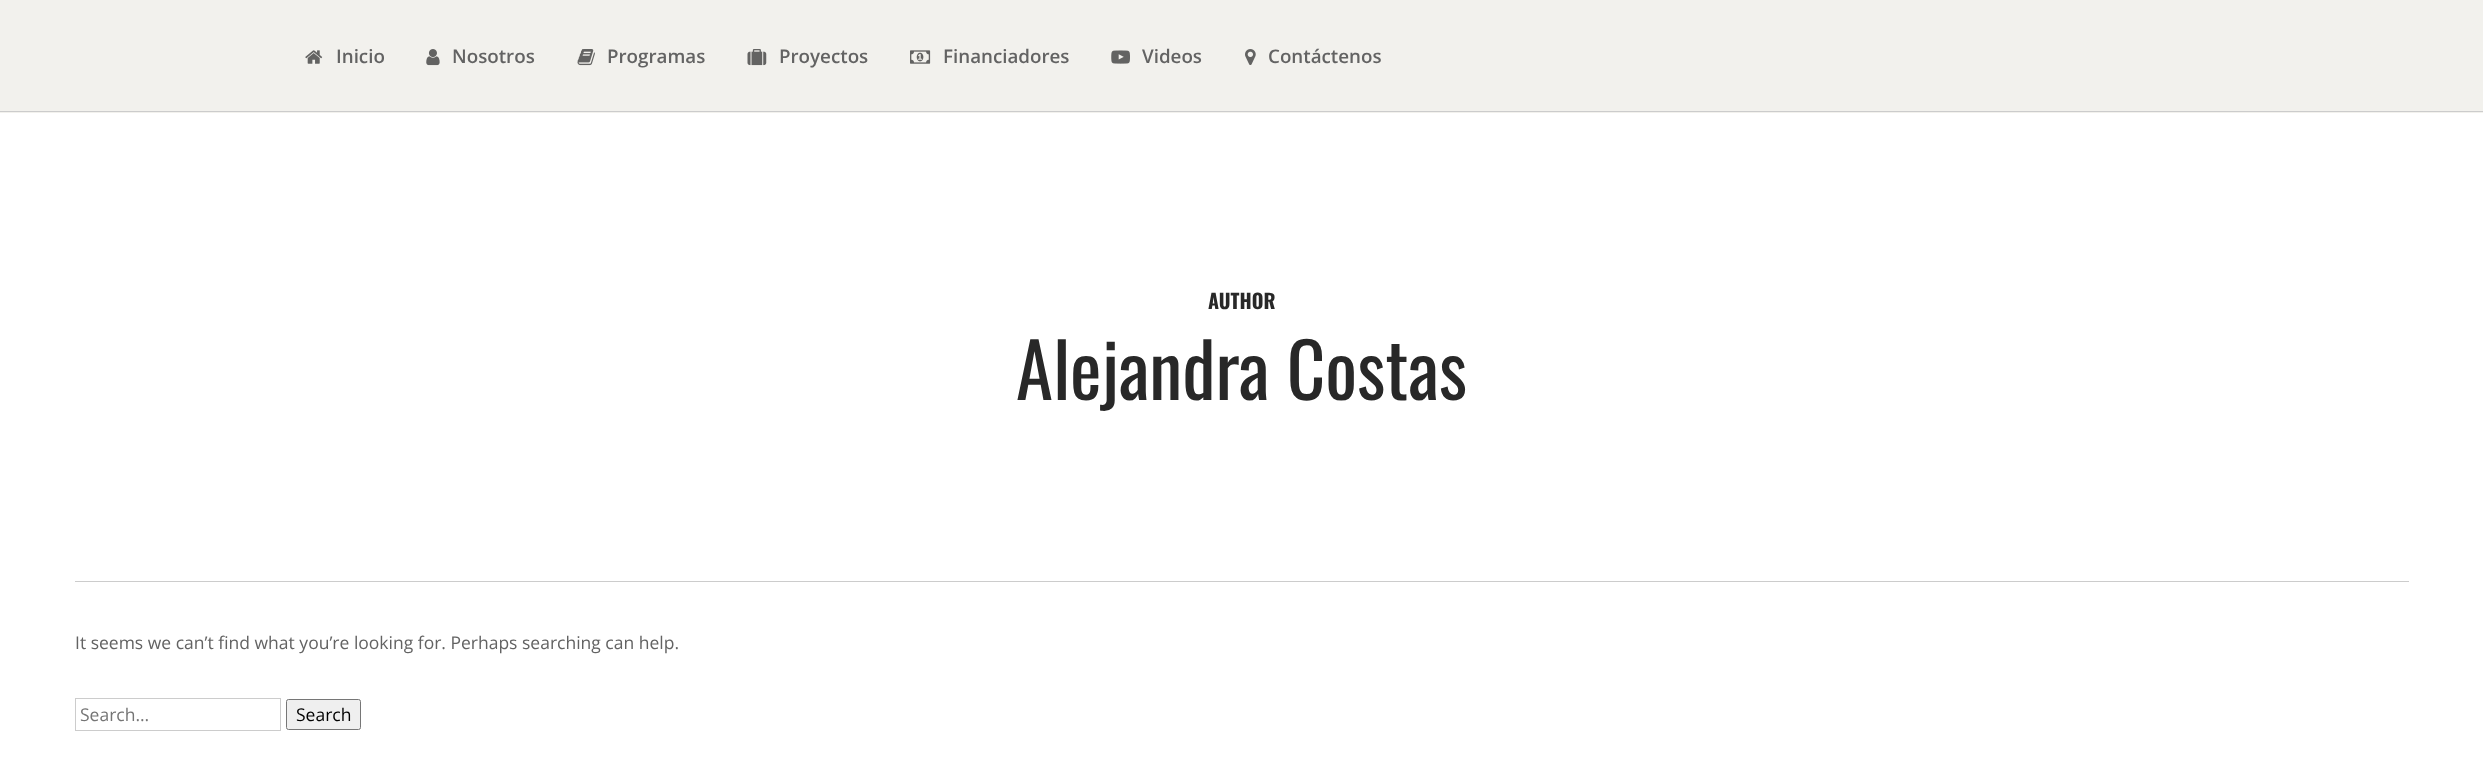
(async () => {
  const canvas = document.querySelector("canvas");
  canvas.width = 2483;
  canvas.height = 764;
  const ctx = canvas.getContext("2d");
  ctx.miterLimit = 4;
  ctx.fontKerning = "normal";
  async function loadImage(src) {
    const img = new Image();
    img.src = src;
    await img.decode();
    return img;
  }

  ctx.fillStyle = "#ffffff";
  ctx.fillRect(0, 0, 2483, 764);
  ctx.fillStyle = "#f2f1ed";
  ctx.fillRect(0, 0, 2483, 113);
  ctx.fillStyle = "#cccccc";
  ctx.fillRect(0, 111, 2483, 1);
  ctx.drawImage(await loadImage("img/1.png"), 305, 50, 18, 14);
  ctx.drawImage(await loadImage("img/2.png"), 426, 49, 14, 17);
  ctx.drawImage(await loadImage("img/3.png"), 577, 49, 18, 17);
  ctx.drawImage(await loadImage("img/4.png"), 747, 49, 20, 17);
  ctx.drawImage(await loadImage("img/5.png"), 910, 50, 21, 14);
  ctx.drawImage(await loadImage("img/6.png"), 1111, 50, 19, 14);
  ctx.drawImage(await loadImage("img/7.png"), 1245, 49, 11, 16);
  ctx.fillRect(75, 581, 2334, 1);
  ctx.strokeStyle = "#cccccc";
  ctx.strokeRect(75.5, 698.5, 205, 32);
  ctx.fillStyle = "#efefef";
  ctx.beginPath();
  ctx.roundRect(286.5, 699.5, 74, 30, 2);
  ctx.fill();
  ctx.strokeStyle = "#767676";
  ctx.stroke();
  ctx.font = "600 18.75px Open Sans";
  ctx.fillStyle = "#636363";
  for (const [text, x, y] of [
    ["Inicio", 336, 63],
    ["Nosotros", 452, 63],
    ["Programas", 607, 63],
    ["Proyectos", 779, 63],
    ["Financiadores", 943, 63],
    ["Videos", 1142, 63],
    ["Contáctenos", 1268, 63],
  ]) {
    ctx.fillText(text, x, y);
  }
  ctx.font = "bold 20px Oswald";
  ctx.fillStyle = "#282828";
  ctx.fillText("AUTHOR", 1208, 309);
  ctx.font = "75px Oswald";
  ctx.fillText("Alejandra Costas", 1016, 400);
  ctx.font = "17.5px Open Sans";
  ctx.fillStyle = "#636363";
  ctx.fillText("It seems we can’t find what you’re looking for. Perhaps searching can help.", 75, 649);
  ctx.fillStyle = "#757575";
  ctx.fillText("Search…", 80, 721);
  ctx.fillStyle = "#000000";
  ctx.fillText("Search", 296, 721);
})();
